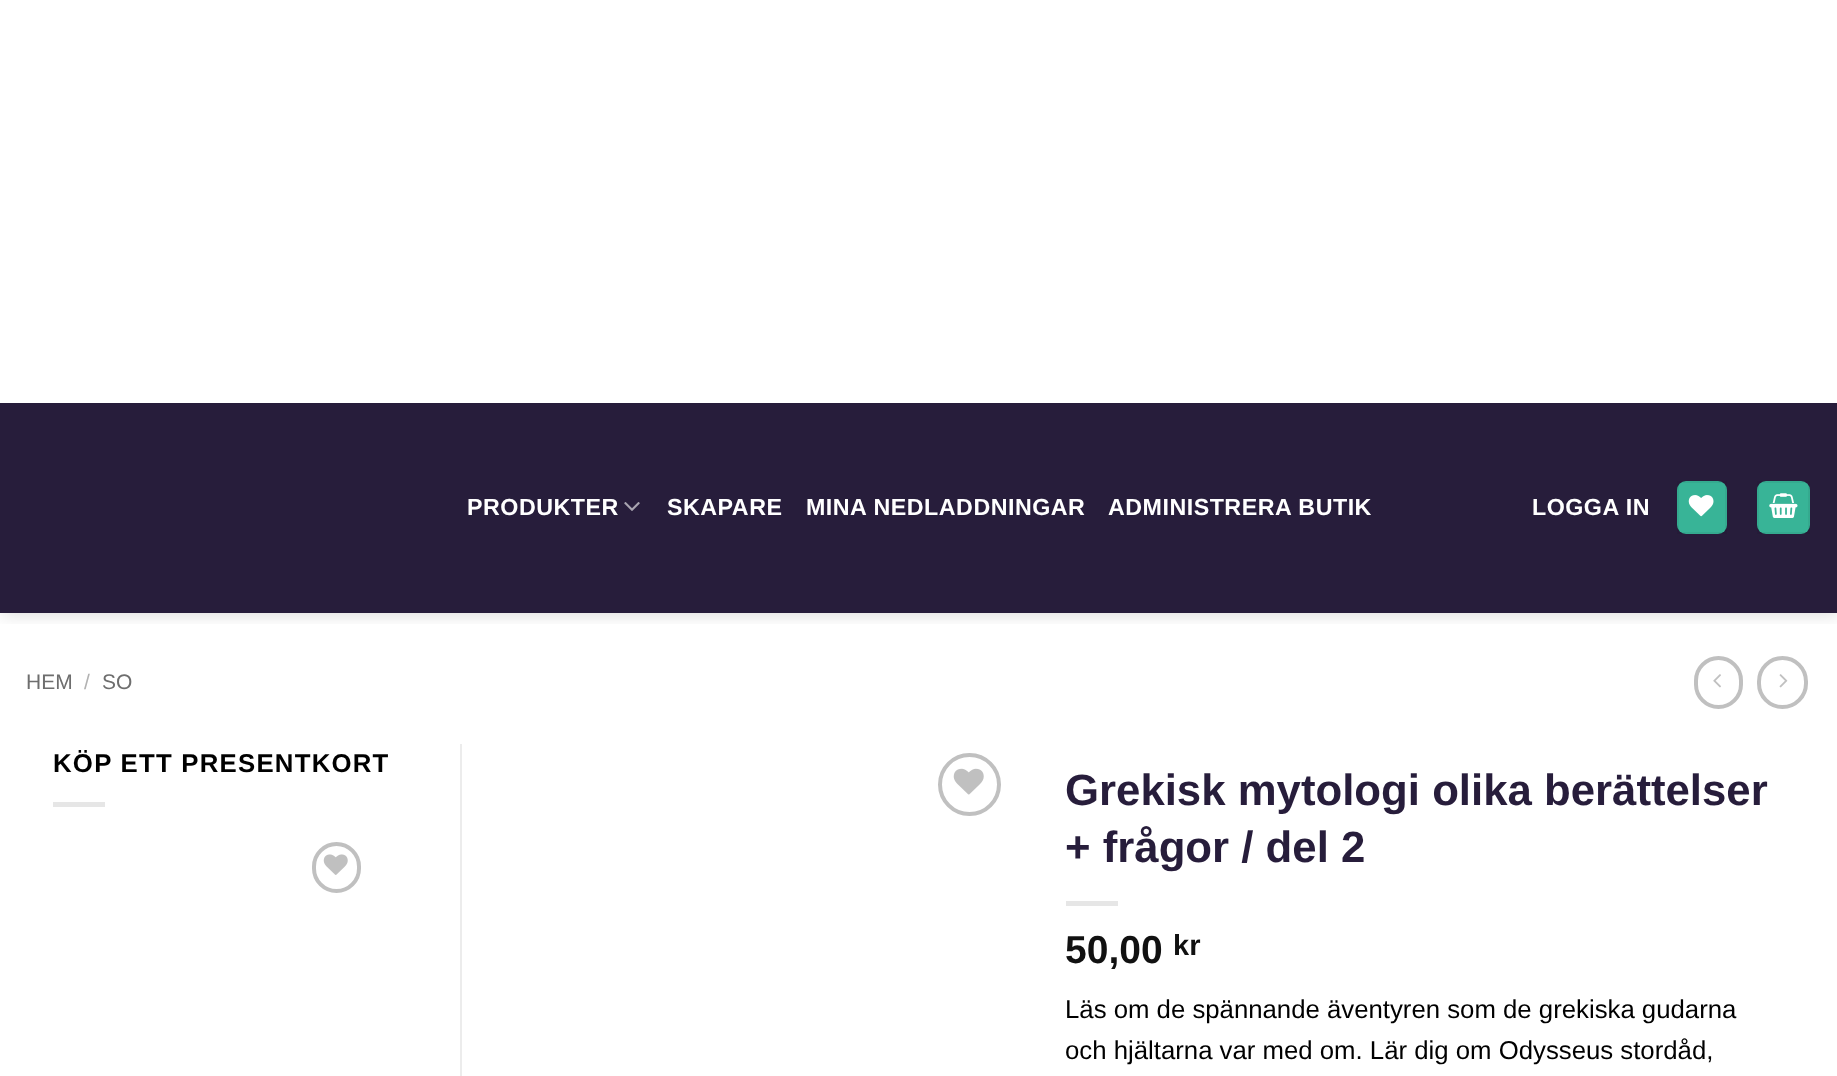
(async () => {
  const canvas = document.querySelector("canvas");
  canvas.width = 1837;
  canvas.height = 1076;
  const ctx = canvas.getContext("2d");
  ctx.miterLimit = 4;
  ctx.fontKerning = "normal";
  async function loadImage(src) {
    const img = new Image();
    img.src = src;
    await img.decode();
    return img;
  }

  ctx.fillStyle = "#ffffff";
  ctx.fillRect(0, 0, 1837, 1076);
  ctx.save();
  ctx.beginPath();
  ctx.rect(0, 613, 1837, 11);
  ctx.clip();
  ctx.fillStyle = "rgba(0, 0, 0, 0.15)";
  ctx.filter = "blur(9px)";
  ctx.beginPath();
  ctx.rect(2, 2, 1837, 612);
  ctx.fill();
  ctx.filter = "none";
  ctx.restore();
  ctx.fillStyle = "#271d3b";
  ctx.fillRect(0, 403, 1837, 210);
  ctx.drawImage(await loadImage("img/1.png"), 624, 502, 16, 9);
  ctx.fillStyle = "#38b497";
  ctx.beginPath();
  ctx.roundRect(1677, 481, 50, 53, 9);
  ctx.fill();
  ctx.strokeStyle = "rgba(0, 0, 0, 0.05)";
  ctx.lineWidth = 2;
  ctx.strokeRect(1678, 482, 48, 51);
  ctx.drawImage(await loadImage("img/2.png"), 1688, 495, 26, 22);
  ctx.beginPath();
  ctx.roundRect(1757, 481, 53, 53, 9);
  ctx.fill();
  ctx.strokeRect(1758, 482, 51, 51);
  ctx.drawImage(await loadImage("img/3.png"), 1769, 493, 29, 25);
  ctx.beginPath();
  ctx.roundRect(1696, 658, 45, 49, 22.5);
  ctx.strokeStyle = "#c0c0c0";
  ctx.lineWidth = 4;
  ctx.stroke();
  ctx.drawImage(await loadImage("img/4.png"), 1713, 674, 8, 14);
  ctx.beginPath();
  ctx.roundRect(1759, 658, 47, 49, 23.5);
  ctx.stroke();
  ctx.drawImage(await loadImage("img/5.png"), 1779, 674, 9, 14);
  ctx.fillStyle = "#e6e6e6";
  ctx.fillRect(53, 802, 52, 5);
  ctx.beginPath();
  ctx.roundRect(314, 844, 45, 47, 22.5);
  ctx.stroke();
  ctx.drawImage(await loadImage("img/6.png"), 323, 854, 25, 21);
  ctx.fillStyle = "#ececec";
  ctx.fillRect(460, 744, 2, 332);
  ctx.beginPath();
  ctx.arc(969.5, 784.5, 29.5, 0, Math.PI * 2);
  ctx.stroke();
  ctx.drawImage(await loadImage("img/7.png"), 953, 768, 31, 27);
  ctx.fillStyle = "#e6e6e6";
  ctx.fillRect(1066, 901, 52, 5);
  ctx.letterSpacing = "0.5px";
  ctx.font = "bold 23.25px Liberation Sans";
  ctx.fillStyle = "#ffffff";
  for (const [text, x, y] of [
    ["PRODUKTER", 467, 515],
    ["SKAPARE", 667, 515],
    ["MINA NEDLADDNINGAR", 806, 515],
    ["ADMINISTRERA BUTIK", 1108, 515],
    ["LOGGA IN", 1532, 515],
  ]) {
    ctx.fillText(text, x, y);
  }
  ctx.letterSpacing = "0px";
  ctx.font = "21px Liberation Sans";
  ctx.fillStyle = "#6e6e6e";
  ctx.fillText("HEM", 26, 689);
  ctx.fillStyle = "#b2b2b2";
  ctx.fillText("/", 84, 689);
  ctx.fillStyle = "#6e6e6e";
  ctx.fillText("SO", 102, 689);
  ctx.letterSpacing = "1.25px";
  ctx.font = "bold 25.75px Liberation Sans";
  ctx.fillStyle = "#000000";
  ctx.fillText("KÖP ETT PRESENTKORT", 53, 772);
  ctx.letterSpacing = "0px";
  ctx.font = "bold 43.75px Liberation Sans";
  ctx.fillStyle = "#271d3b";
  ctx.fillText("Grekisk mytologi olika berättelser", 1065, 805);
  ctx.fillText("+ frågor / del 2", 1065, 862);
  ctx.font = "bold 39px Liberation Sans";
  ctx.fillStyle = "#111111";
  ctx.fillText("50,00", 1065, 963);
  ctx.font = "bold 29px Liberation Sans";
  ctx.fillText("kr", 1173, 955);
  ctx.font = "25.75px Liberation Sans";
  ctx.fillStyle = "#000000";
  ctx.fillText("Läs om de spännande äventyren som de grekiska gudarna", 1065, 1018);
  ctx.fillText("och hjältarna var med om. Lär dig om Odysseus stordåd,", 1065, 1059);
})();
